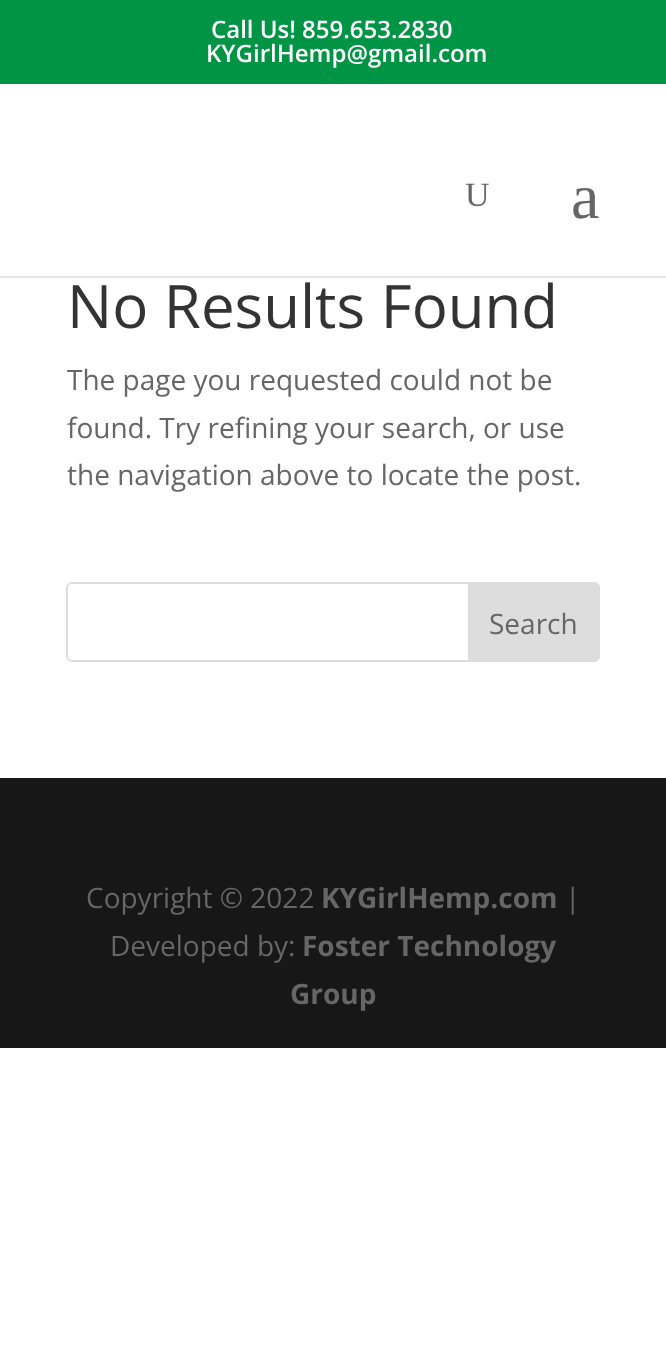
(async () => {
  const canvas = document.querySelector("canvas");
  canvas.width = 666;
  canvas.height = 1368;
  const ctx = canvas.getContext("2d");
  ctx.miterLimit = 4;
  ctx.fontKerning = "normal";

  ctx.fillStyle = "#ffffff";
  ctx.fillRect(0, 0, 666, 1368);
  ctx.fillStyle = "#009444";
  ctx.fillRect(0, 0, 666, 84);
  ctx.fillStyle = "#e6e6e6";
  ctx.fillRect(0, 276, 666, 2);
  ctx.beginPath();
  ctx.roundRect(67, 583, 532, 78, 5);
  ctx.strokeStyle = "#dddddd";
  ctx.lineWidth = 2;
  ctx.stroke();
  ctx.fillStyle = "#dddddd";
  ctx.beginPath();
  ctx.roundRect(469, 583, 130, 78, [0, 5, 5, 0]);
  ctx.fill();
  ctx.stroke();
  ctx.fillStyle = "#171717";
  ctx.fillRect(0, 778, 666, 270);
  ctx.font = "600 24px Open Sans";
  ctx.fillStyle = "#ffffff";
  ctx.fillText("Call Us! 859.653.2830", 211, 38);
  ctx.fillText("KYGirlHemp@gmail.com", 206, 62);
  ctx.font = "34px Liberation Serif";
  ctx.fillStyle = "#666666";
  ctx.fillText("U", 465, 206);
  ctx.font = "64px Liberation Serif";
  ctx.fillText("a", 571, 218);
  ctx.font = "60px Open Sans";
  ctx.fillStyle = "#333333";
  ctx.fillText("No Results Found", 67, 328);
  ctx.font = "28px Open Sans";
  ctx.fillStyle = "#666666";
  for (const [text, x, y] of [
    ["The page you requested could not be", 67, 390],
    ["found. Try refining your search, or use", 67, 438],
    ["the navigation above to locate the post.", 67, 485],
    ["Search", 489, 634],
    ["Copyright © 2022", 86, 908],
  ]) {
    ctx.fillText(text, x, y);
  }
  ctx.font = "bold 28px Open Sans";
  ctx.fillText("KYGirlHemp.com", 321, 908);
  ctx.font = "28px Open Sans";
  ctx.fillText("|", 565, 908);
  ctx.fillText("Developed by:", 110, 956);
  ctx.font = "bold 28px Open Sans";
  ctx.fillText("Foster Technology", 302, 956);
  ctx.fillText("Group", 290, 1004);
})();
